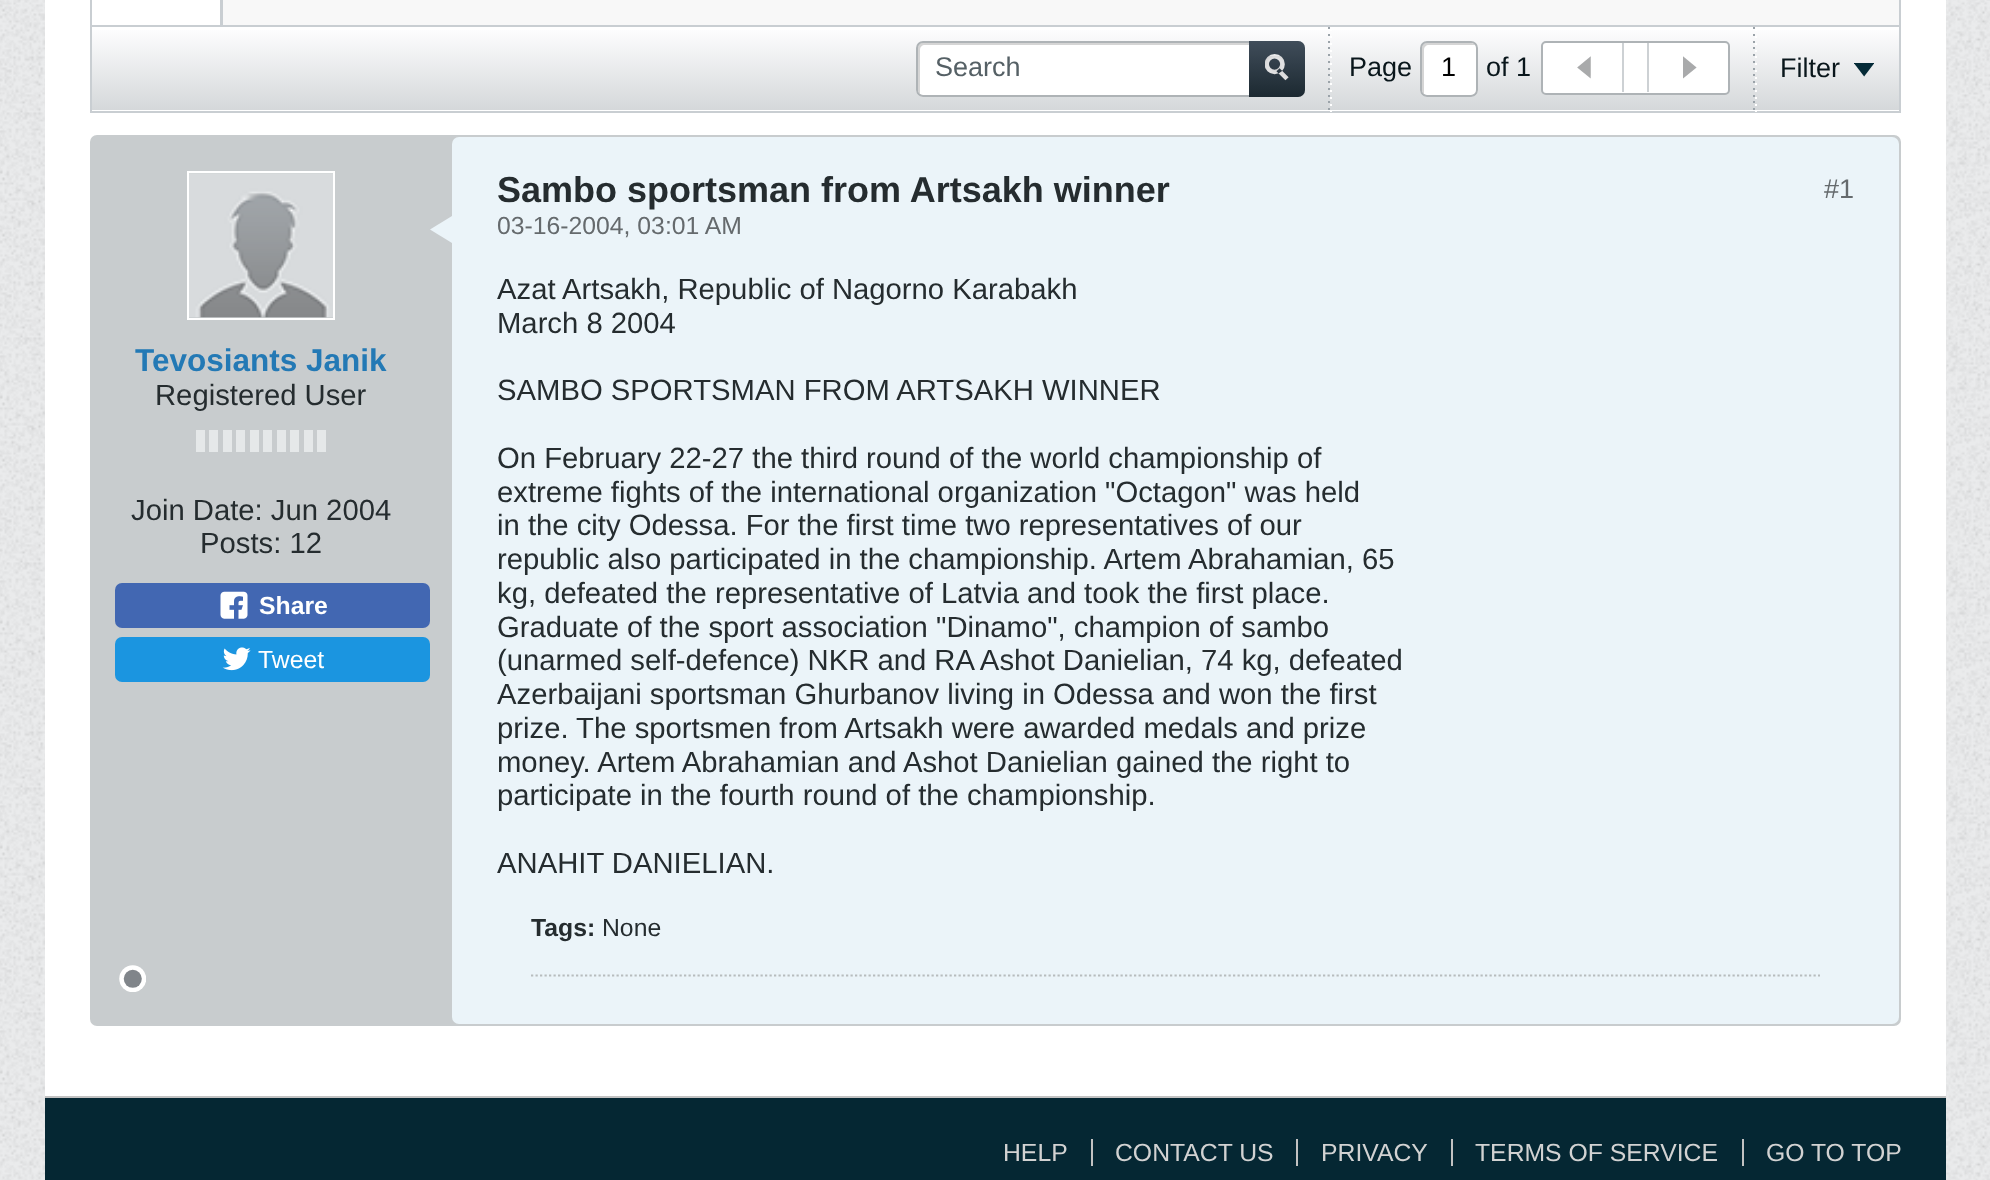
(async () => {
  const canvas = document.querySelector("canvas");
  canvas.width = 1990;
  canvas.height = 1180;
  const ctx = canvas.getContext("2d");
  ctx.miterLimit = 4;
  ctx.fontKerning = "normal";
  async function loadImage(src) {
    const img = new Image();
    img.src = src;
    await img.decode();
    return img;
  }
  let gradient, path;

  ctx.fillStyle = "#eaebec";
  ctx.fillRect(0, 0, 1990, 1180);
  ctx.drawImage(await loadImage("img/1.png"), 0, 0, 1990, 1180);
  ctx.fillStyle = "#ffffff";
  ctx.fillRect(45, 0, 1901, 1096);
  ctx.fillStyle = "#f8f8f8";
  ctx.fillRect(223, 0, 1676, 25);
  ctx.fillStyle = "#c9ced2";
  path = new Path2D("M97-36H1894C1898-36 1901-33 1901-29V25H90V-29C90-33 93-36 97-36ZM97-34H1894C1897-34 1899-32 1899-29V25H92V-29C92-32 94-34 97-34Z");
  ctx.fill(path, "evenodd");
  path = new Path2D("M97-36H216C220-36 223-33 223-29V25H90V-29C90-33 93-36 97-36ZM97-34H216C218-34 220-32 220-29V25H92V-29C92-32 94-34 97-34Z");
  ctx.fill(path, "evenodd");
  gradient = ctx.createLinearGradient(996, 27, 996, 110);
  gradient.addColorStop(0, "#fefeff");
  gradient.addColorStop(1, "#d5d8da");
  ctx.fillStyle = gradient;
  ctx.fillRect(92, 30, 1807, 80);
  ctx.strokeStyle = "#c9ced2";
  ctx.lineWidth = 2;
  ctx.strokeRect(91, 26, 1809, 86);
  ctx.fillStyle = "#ffffff";
  ctx.beginPath();
  ctx.roundRect(916, 41, 389, 56, 7);
  ctx.fill();
  ctx.fillStyle = "#d5d5d5";
  path = new Path2D("M925 45H1300H1302C1301 44 1300 43 1298 43H923C920 43 918 45 918 48V90C918 92 919 93 920 94V92V50C920 47 922 45 925 45Z");
  ctx.fill(path);
  ctx.beginPath();
  ctx.roundRect(917, 42, 387, 54, 6);
  ctx.strokeStyle = "#aeb3b6";
  ctx.stroke();
  gradient = ctx.createLinearGradient(1277, 41, 1277, 97);
  gradient.addColorStop(0, "#404d5a");
  gradient.addColorStop(1, "#1c2931");
  ctx.fillStyle = gradient;
  ctx.beginPath();
  ctx.roundRect(1249, 41, 56, 56, [0, 7, 7, 0]);
  ctx.fill();
  ctx.drawImage(await loadImage("img/2.png"), 1265, 54, 24, 27);
  for (const [x, y, w, h, color] of [
    [1328, 27, 2, 2, "#9ba3a9"],
    [1328, 34, 2, 2, "#9ba3a9"],
    [1328, 41, 2, 2, "#9ba3a9"],
    [1328, 47, 2, 2, "#9ba3a9"],
    [1328, 54, 2, 2, "#9ba3a9"],
    [1328, 61, 2, 2, "#9ba3a9"],
    [1328, 68, 2, 2, "#9ba3a9"],
    [1328, 74, 2, 2, "#9ba3a9"],
    [1328, 81, 2, 2, "#9ba3a9"],
    [1328, 88, 2, 2, "#9ba3a9"],
    [1328, 95, 2, 2, "#9ba3a9"],
    [1328, 101, 2, 2, "#9ba3a9"],
    [1328, 108, 2, 2, "#9ba3a9"],
    [1330, 30, 2, 1, "#ffffff"],
    [1330, 36, 2, 2, "#ffffff"],
    [1330, 43, 2, 2, "#ffffff"],
    [1330, 50, 2, 2, "#ffffff"],
    [1330, 56, 2, 2, "#ffffff"],
    [1330, 63, 2, 2, "#ffffff"],
    [1330, 70, 2, 2, "#ffffff"],
    [1330, 77, 2, 2, "#ffffff"],
    [1330, 83, 2, 2, "#ffffff"],
    [1330, 90, 2, 2, "#ffffff"],
    [1330, 97, 2, 2, "#ffffff"],
    [1330, 104, 2, 2, "#ffffff"],
    [1330, 111, 2, 1, "#ffffff"],
  ]) {
    ctx.fillStyle = color;
    ctx.fillRect(x, y, w, h);
  }
  ctx.beginPath();
  ctx.roundRect(1420, 41, 58, 56, 7);
  ctx.fill();
  ctx.fillStyle = "#d5d5d5";
  path = new Path2D("M1429 45H1475C1474 44 1473 43 1471 43H1427C1424 43 1422 45 1422 48V90C1422 92 1423 93 1424 94V92V50C1424 47 1426 45 1429 45Z");
  ctx.fill(path);
  ctx.beginPath();
  ctx.roundRect(1421, 42, 56, 54, 6);
  ctx.stroke();
  ctx.fillStyle = "#ffffff";
  ctx.beginPath();
  ctx.roundRect(1542, 42, 187, 52, 4);
  ctx.fill();
  ctx.stroke();
  ctx.fillStyle = "#cdd1d4";
  ctx.fillRect(1622, 43, 2, 49);
  ctx.drawImage(await loadImage("img/3.png"), 1577, 56, 14, 23);
  ctx.fillRect(1647, 43, 2, 49);
  ctx.drawImage(await loadImage("img/4.png"), 1683, 56, 14, 23);
  for (const [x, y, w, h, color] of [
    [1753, 27, 2, 2, "#9ba3a9"],
    [1753, 34, 2, 2, "#9ba3a9"],
    [1753, 41, 2, 2, "#9ba3a9"],
    [1753, 47, 2, 2, "#9ba3a9"],
    [1753, 54, 2, 2, "#9ba3a9"],
    [1753, 61, 2, 2, "#9ba3a9"],
    [1753, 68, 2, 2, "#9ba3a9"],
    [1753, 74, 2, 2, "#9ba3a9"],
    [1753, 81, 2, 2, "#9ba3a9"],
    [1753, 88, 2, 2, "#9ba3a9"],
    [1753, 95, 2, 2, "#9ba3a9"],
    [1753, 101, 2, 2, "#9ba3a9"],
    [1753, 108, 2, 2, "#9ba3a9"],
    [1755, 30, 2, 1, "#ffffff"],
    [1755, 36, 2, 2, "#ffffff"],
    [1755, 43, 2, 2, "#ffffff"],
    [1755, 50, 2, 2, "#ffffff"],
    [1755, 56, 2, 2, "#ffffff"],
    [1755, 63, 2, 2, "#ffffff"],
    [1755, 70, 2, 2, "#ffffff"],
    [1755, 77, 2, 2, "#ffffff"],
    [1755, 83, 2, 2, "#ffffff"],
    [1755, 90, 2, 2, "#ffffff"],
    [1755, 97, 2, 2, "#ffffff"],
    [1755, 104, 2, 2, "#ffffff"],
    [1755, 111, 2, 1, "#ffffff"],
  ]) {
    ctx.fillStyle = color;
    ctx.fillRect(x, y, w, h);
  }
  ctx.drawImage(await loadImage("img/5.png"), 1854, 63, 20, 14);
  ctx.fillStyle = "#c8ccce";
  ctx.beginPath();
  ctx.roundRect(91, 136, 1809, 889, 6);
  ctx.fill();
  ctx.strokeStyle = "#c8ccce";
  ctx.stroke();
  ctx.strokeStyle = "#ffffff";
  ctx.strokeRect(188, 172, 146, 147);
  ctx.drawImage(await loadImage("img/6.png"), 189, 173, 144, 145);
  for (const [x, y, w, h, color] of [
    [196, 430, 9, 22, "#e5e8e9"],
    [209, 430, 9, 22, "#e5e8e9"],
    [223, 430, 9, 22, "#e5e8e9"],
    [236, 430, 9, 22, "#e5e8e9"],
    [250, 430, 9, 22, "#e5e8e9"],
    [263, 430, 9, 22, "#e5e8e9"],
    [277, 430, 9, 22, "#e5e8e9"],
    [290, 430, 9, 22, "#e5e8e9"],
    [304, 430, 9, 22, "#e5e8e9"],
    [317, 430, 9, 22, "#e5e8e9"],
  ]) {
    ctx.fillStyle = color;
    ctx.fillRect(x, y, w, h);
  }
  ctx.drawImage(await loadImage("img/7.png"), 119, 965, 27, 27);
  ctx.fillStyle = "#4267b2";
  ctx.beginPath();
  ctx.roundRect(115, 583, 315, 45, 7);
  ctx.fill();
  ctx.drawImage(await loadImage("img/8.png"), 220, 591, 28, 28);
  ctx.fillStyle = "#1b95e0";
  ctx.beginPath();
  ctx.roundRect(115, 637, 315, 45, 7);
  ctx.fill();
  ctx.drawImage(await loadImage("img/9.png"), 222, 647, 29, 24);
  ctx.fillStyle = "#ebf4f9";
  ctx.beginPath();
  ctx.roundRect(452, 137, 1447, 887, 7);
  ctx.fill();
  path = new Path2D("M452 216V243L430 229.5Z");
  ctx.fill(path);
  path = new Path2D("M531 975.5H1820");
  ctx.strokeStyle = "#b7bcbe";
  ctx.lineWidth = 2.2;
  ctx.setLineDash([2.25, 2.25]);
  ctx.stroke(path);
  for (const [x, y, w, h, color] of [
    [45, 1098, 1901, 82, "#052733"],
    [45, 1096, 1901, 2, "#c2c2c2"],
    [1091, 1139, 2, 27, "#c2c2c2"],
    [1296, 1139, 2, 27, "#c2c2c2"],
    [1451, 1139, 2, 27, "#c2c2c2"],
    [1742, 1139, 2, 27, "#c2c2c2"],
  ]) {
    ctx.fillStyle = color;
    ctx.fillRect(x, y, w, h);
  }
  ctx.font = "27px Liberation Sans";
  ctx.fillStyle = "#556065";
  ctx.fillText("Search", 935, 76);
  ctx.fillStyle = "#09161b";
  ctx.fillText("Page", 1349, 76);
  ctx.fillStyle = "#000000";
  ctx.fillText("1", 1441, 76);
  ctx.fillStyle = "#09161b";
  ctx.fillText("of 1", 1486, 76);
  ctx.fillText("Filter", 1780, 77);
  ctx.font = "bold 31.5px Liberation Sans";
  ctx.fillStyle = "#2379b5";
  ctx.fillText("Tevosiants Janik", 135, 371);
  ctx.font = "29.25px Liberation Sans";
  ctx.fillStyle = "#252c2f";
  for (const [text, x, y] of [
    ["Registered User", 155, 405],
    ["Join Date: Jun 2004", 131, 520],
    ["Posts: 12", 200, 553],
  ]) {
    ctx.fillText(text, x, y);
  }
  ctx.font = "bold 24.75px Liberation Sans";
  ctx.fillStyle = "#ffffff";
  ctx.fillText("Share", 259, 614);
  ctx.font = "24.75px Liberation Sans";
  ctx.fillText("Tweet", 258, 668);
  ctx.font = "bold 36px Liberation Sans";
  ctx.fillStyle = "#252c2f";
  ctx.fillText("Sambo sportsman from Artsakh winner", 497, 202);
  ctx.font = "24.75px Liberation Sans";
  ctx.fillStyle = "#656a6d";
  ctx.fillText("03-16-2004, 03:01 AM", 497, 234);
  ctx.font = "27px Liberation Sans";
  ctx.fillText("#1", 1824, 198);
  ctx.font = "29.25px Liberation Sans";
  ctx.fillStyle = "#252c2f";
  for (const [text, x, y] of [
    ["Azat Artsakh, Republic of Nagorno Karabakh", 497, 299],
    ["March 8 2004", 497, 333],
    ["SAMBO SPORTSMAN FROM ARTSAKH WINNER", 497, 400],
    ["On February 22-27 the third round of the world championship of", 497, 468],
    ["extreme fights of the international organization \"Octagon\" was held", 497, 502],
    ["in the city Odessa. For the first time two representatives of our", 497, 535],
    ["republic also participated in the championship. Artem Abrahamian, 65", 497, 569],
    ["kg, defeated the representative of Latvia and took the first place.", 497, 603],
    ["Graduate of the sport association \"Dinamo\", champion of sambo", 497, 637],
    ["(unarmed self-defence) NKR and RA Ashot Danielian, 74 kg, defeated", 497, 670],
    ["Azerbaijani sportsman Ghurbanov living in Odessa and won the first", 497, 704],
    ["prize. The sportsmen from Artsakh were awarded medals and prize", 497, 738],
    ["money. Artem Abrahamian and Ashot Danielian gained the right to", 497, 772],
    ["participate in the fourth round of the championship.", 497, 805],
    ["ANAHIT DANIELIAN.", 497, 873],
  ]) {
    ctx.fillText(text, x, y);
  }
  ctx.font = "bold 24.75px Liberation Sans";
  ctx.fillText("Tags:", 531, 936);
  ctx.font = "24.75px Liberation Sans";
  ctx.fillText("None", 602, 936);
  ctx.fillStyle = "#d2d2d2";
  for (const [text, x, y] of [
    ["HELP", 1003, 1161],
    ["CONTACT US", 1115, 1161],
    ["PRIVACY", 1321, 1161],
    ["TERMS OF SERVICE", 1475, 1161],
    ["GO TO TOP", 1766, 1161],
  ]) {
    ctx.fillText(text, x, y);
  }
})();
